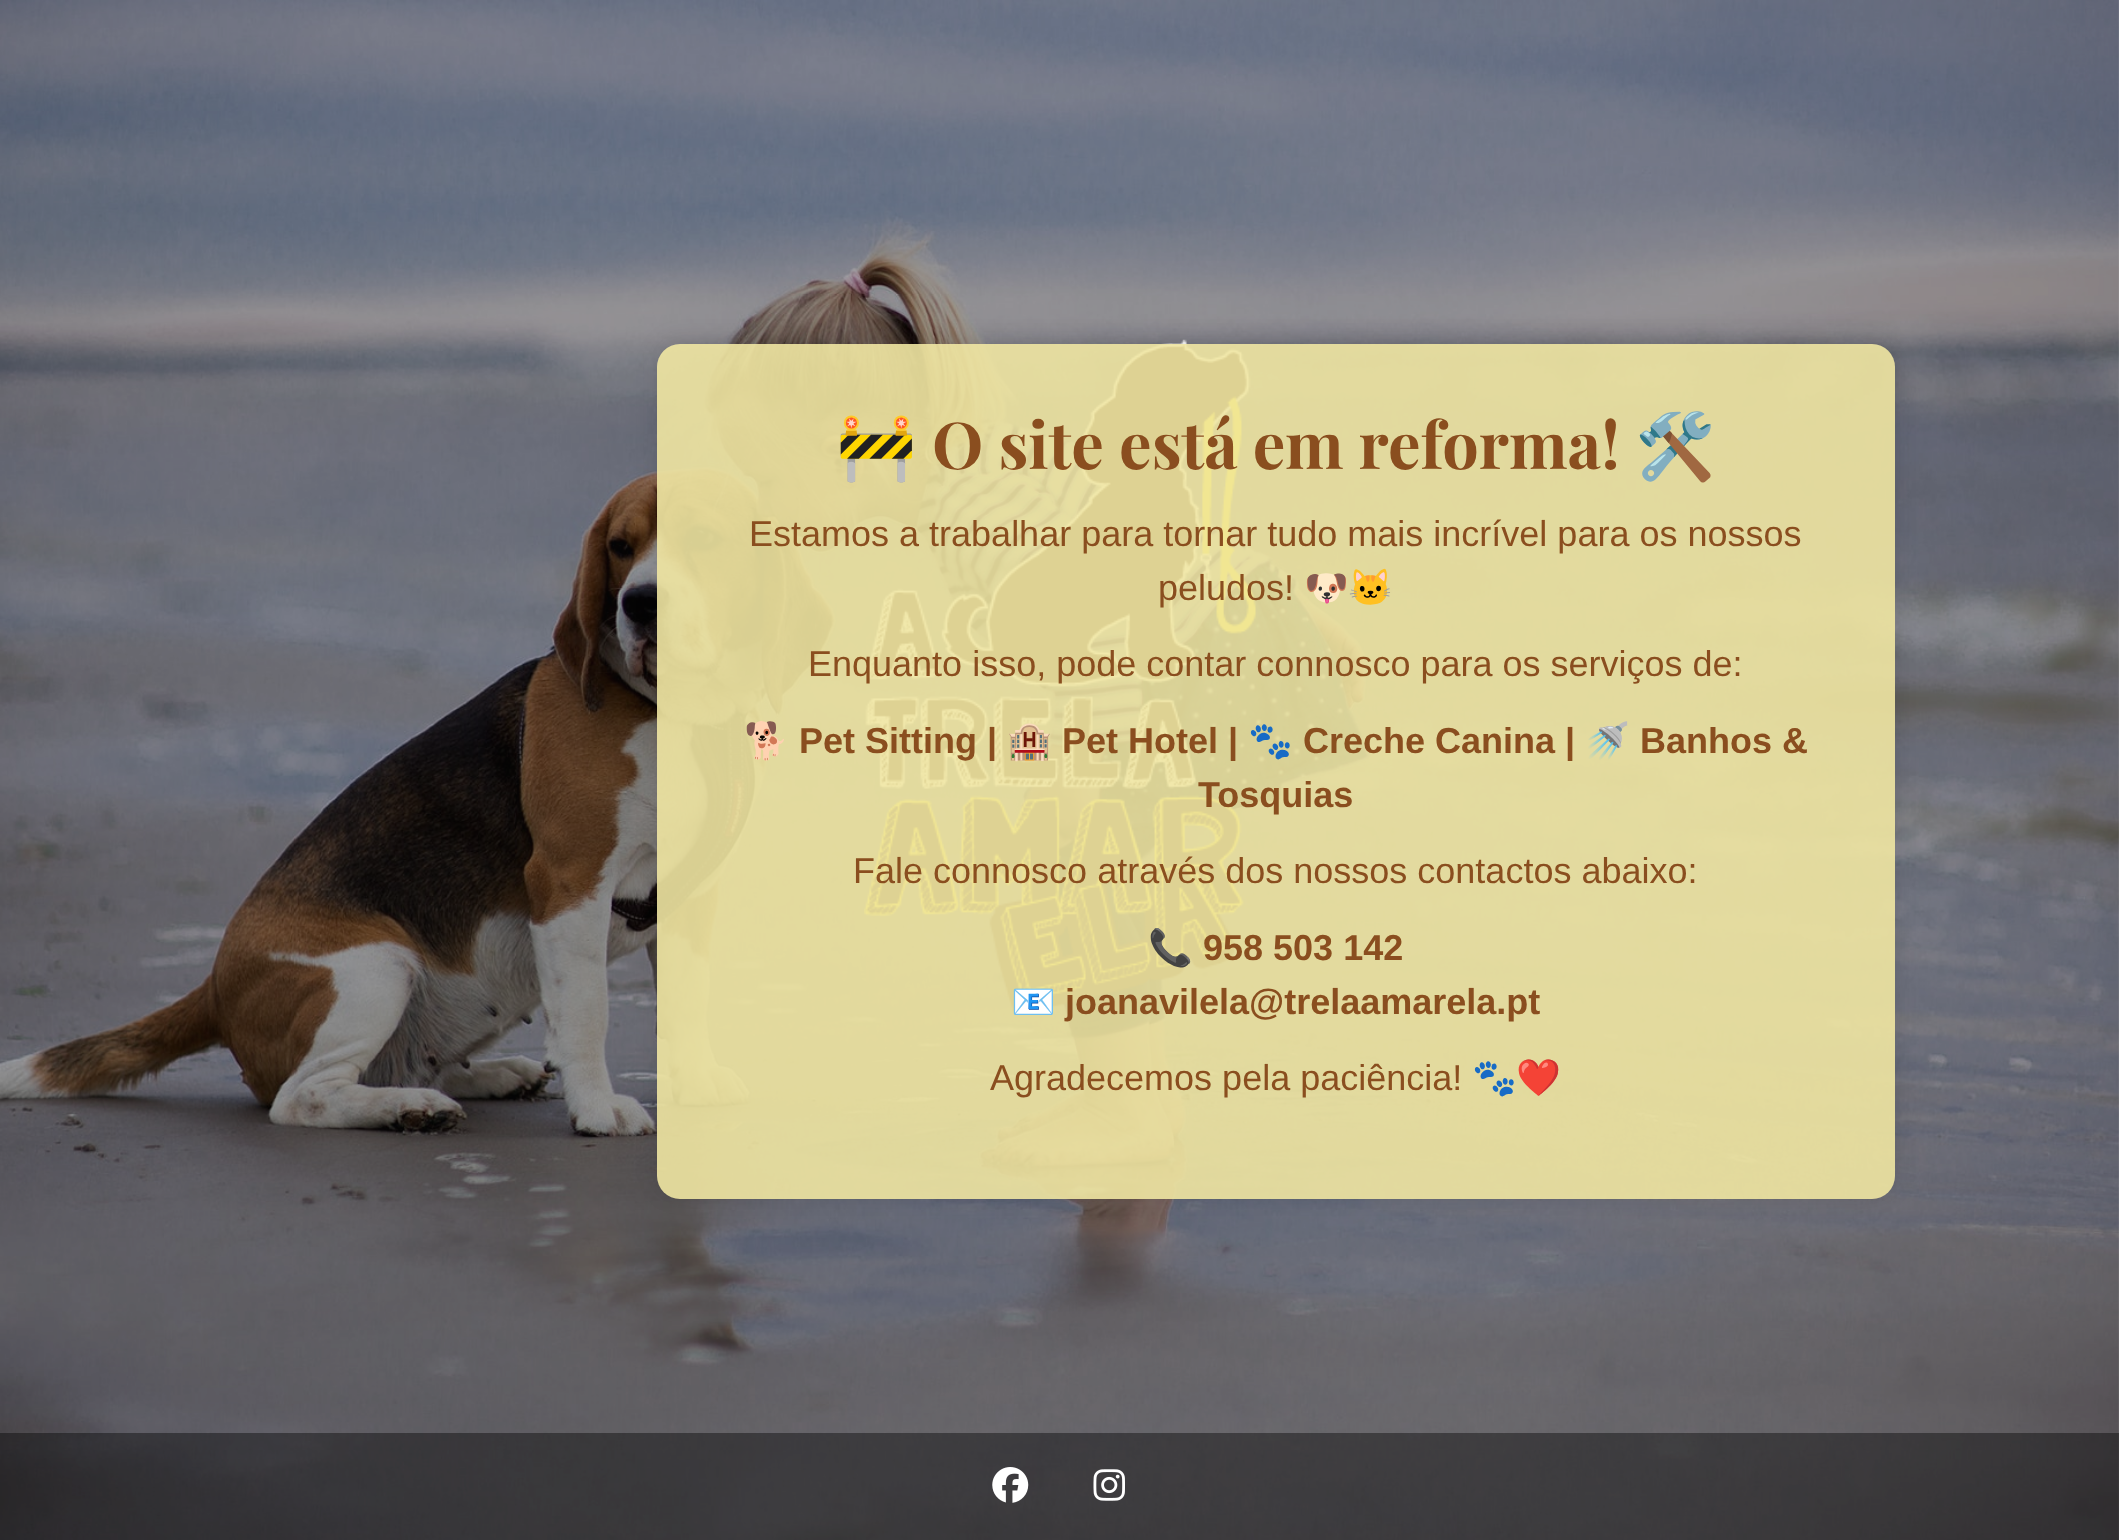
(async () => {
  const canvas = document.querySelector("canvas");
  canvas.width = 2119;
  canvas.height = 1540;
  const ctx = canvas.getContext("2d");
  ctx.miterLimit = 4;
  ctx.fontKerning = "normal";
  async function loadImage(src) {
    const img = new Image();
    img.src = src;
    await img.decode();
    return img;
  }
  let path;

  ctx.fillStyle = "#ffffff";
  ctx.fillRect(0, 0, 2119, 1540);
  ctx.drawImage(await loadImage("img/1.png"), 0, 0, 2119, 1540);
  ctx.drawImage(await loadImage("img/2.png"), 864, 339, 392, 676);
  ctx.save();
  path = new Path2D("M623 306H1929V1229H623ZM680 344H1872C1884.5 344 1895 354.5 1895 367V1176C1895 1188.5 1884.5 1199 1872 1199H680C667.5 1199 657 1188.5 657 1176V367C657 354.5 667.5 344 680 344Z");
  ctx.clip(path, "evenodd");
  ctx.fillStyle = "rgba(0, 0, 0, 0.1)";
  ctx.filter = "blur(11px)";
  ctx.beginPath();
  ctx.roundRect(657, 340, 1238, 855, 23);
  ctx.fill();
  ctx.filter = "none";
  ctx.restore();
  ctx.fillStyle = "rgba(240, 229, 162, 0.9)";
  ctx.beginPath();
  ctx.roundRect(657, 344, 1238, 855, 23);
  ctx.fill();
  ctx.fillStyle = "rgba(0, 0, 0, 0.4)";
  ctx.fillRect(0, 1433, 2119, 107);
  ctx.drawImage(await loadImage("img/3.png"), 992, 1467, 37, 36);
  ctx.drawImage(await loadImage("img/4.png"), 1093, 1469, 32, 32);
  ctx.font = "bold 64.75px Noto Color Emoji";
  ctx.fillStyle = "#8a4e1f";
  ctx.fillText("🚧", 836, 469);
  ctx.font = "bold 64.75px Playfair Display";
  ctx.fillText("O site está em reforma!", 932, 469);
  ctx.font = "bold 64.75px Noto Color Emoji";
  ctx.fillText("🛠️", 1635, 469);
  ctx.font = "36px Liberation Sans";
  ctx.fillText("Estamos a trabalhar para tornar tudo mais incrível para os nossos", 749, 546);
  ctx.fillText("peludos!", 1158, 600);
  ctx.font = "36px Noto Color Emoji";
  ctx.fillText("🐶🐱", 1304, 600);
  ctx.font = "36px Liberation Sans";
  ctx.fillText("Enquanto isso, pode contar connosco para os serviços de:", 808, 676);
  ctx.font = "bold 36px Noto Color Emoji";
  ctx.fillText("🐕", 744, 753);
  ctx.font = "bold 36px Liberation Sans";
  ctx.fillText("Pet Sitting |", 799, 753);
  ctx.font = "bold 36px Noto Color Emoji";
  ctx.fillText("🏨", 1007, 753);
  ctx.font = "bold 36px Liberation Sans";
  ctx.fillText("Pet Hotel |", 1062, 753);
  ctx.font = "bold 36px Noto Color Emoji";
  ctx.fillText("🐾", 1248, 753);
  ctx.font = "bold 36px Liberation Sans";
  ctx.fillText("Creche Canina |", 1303, 753);
  ctx.font = "bold 36px Noto Color Emoji";
  ctx.fillText("🚿", 1585, 753);
  ctx.font = "bold 36px Liberation Sans";
  ctx.fillText("Banhos &", 1640, 753);
  ctx.fillText("Tosquias", 1198, 807);
  ctx.font = "36px Liberation Sans";
  ctx.fillText("Fale connosco através dos nossos contactos abaixo:", 853, 883);
  ctx.font = "bold 36px Noto Color Emoji";
  ctx.fillText("📞", 1148, 960);
  ctx.font = "bold 36px Liberation Sans";
  ctx.fillText("958 503 142", 1203, 960);
  ctx.font = "bold 36px Noto Color Emoji";
  ctx.fillText("📧", 1011, 1014);
  ctx.font = "bold 36px Liberation Sans";
  ctx.fillText("joanavilela@trelaamarela.pt", 1065, 1014);
  ctx.font = "36px Liberation Sans";
  ctx.fillText("Agradecemos pela paciência!", 990, 1090);
  ctx.font = "36px Noto Color Emoji";
  ctx.fillText("🐾❤️", 1472, 1090);
})();
